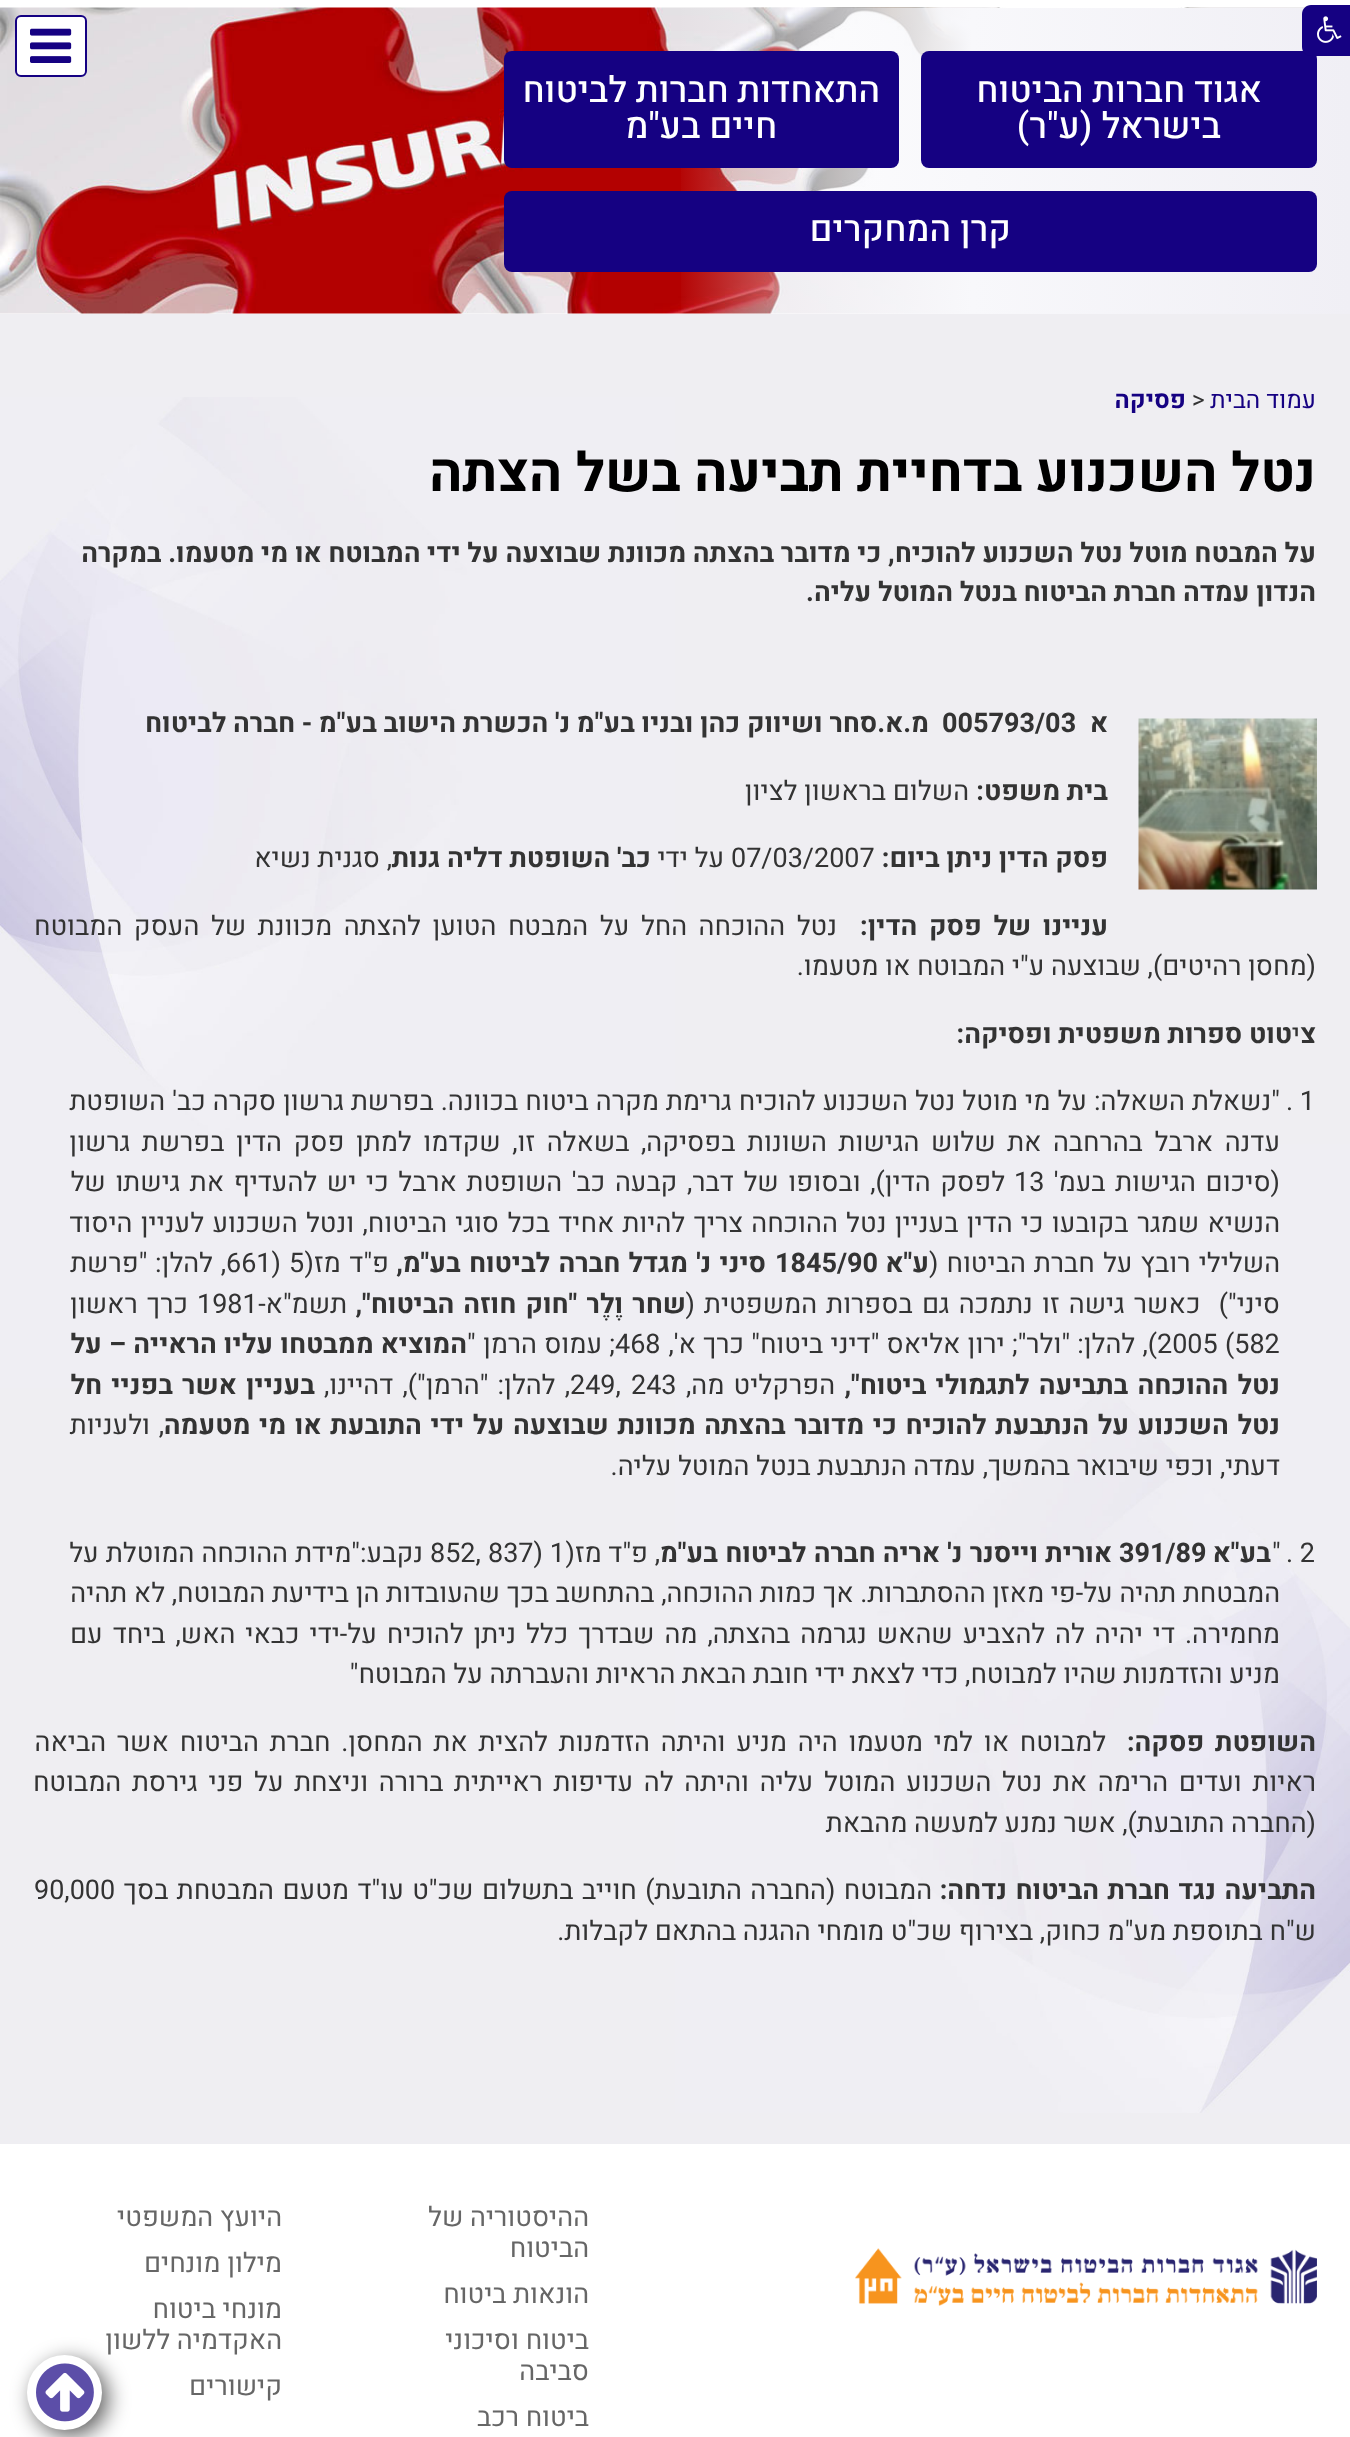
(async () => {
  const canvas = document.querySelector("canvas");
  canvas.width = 1350;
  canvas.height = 2437;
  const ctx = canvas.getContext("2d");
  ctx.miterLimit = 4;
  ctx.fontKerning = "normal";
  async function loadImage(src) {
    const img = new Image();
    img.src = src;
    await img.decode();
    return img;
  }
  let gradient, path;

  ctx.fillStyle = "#ffffff";
  ctx.fillRect(0, 0, 1350, 2437);
  ctx.drawImage(await loadImage("img/3.png"), 0, 7, 1306, 307);
  gradient = ctx.createLinearGradient(675, 161, 1350, 160);
  gradient.addColorStop(0, "rgba(248, 248, 251, 0)");
  gradient.addColorStop(0.44, "#f8f8fb");
  gradient.addColorStop(1, "#f0eff5");
  ctx.fillStyle = gradient;
  ctx.fillRect(681, 8, 669, 306);
  ctx.fillStyle = "#150182";
  ctx.beginPath();
  ctx.roundRect(921, 51, 396, 117, 8);
  ctx.fill();
  path = new Path2D("M1311 5H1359V56H1311C1306 56 1302 52 1302 47V14C1302 9 1306 5 1311 5Z");
  ctx.fill(path);
  ctx.drawImage(await loadImage("img/1.png"), 1317, 16, 25, 27);
  ctx.fillStyle = "#ffffff";
  ctx.beginPath();
  ctx.roundRect(16, 16, 70, 60, 5);
  ctx.fill();
  ctx.strokeStyle = "#150182";
  ctx.lineWidth = 2;
  ctx.stroke();
  ctx.drawImage(await loadImage("img/2.png"), 30, 28, 42, 35);
  ctx.fillStyle = "#150182";
  ctx.beginPath();
  ctx.roundRect(504, 51, 395, 117, 8);
  ctx.fill();
  ctx.beginPath();
  ctx.roundRect(504, 191, 813, 81, 8);
  ctx.fill();
  ctx.fillStyle = "#efeef2";
  ctx.fillRect(0, 314, 1350, 1830);
  ctx.drawImage(await loadImage("img/4.png"), 0, 397, 1350, 1716);
  ctx.drawImage(await loadImage("img/5.png"), 1138, 718, 179, 172);
  ctx.drawImage(await loadImage("img/6.png"), 855, 2248, 462, 58);
  ctx.fillStyle = "rgba(0, 0, 0, 0.63)";
  ctx.filter = "blur(10.5px)";
  ctx.beginPath();
  ctx.roundRect(33, 2361, 75, 75, 37.5);
  ctx.fill();
  ctx.filter = "none";
  ctx.fillStyle = "#ffffff";
  ctx.beginPath();
  ctx.arc(64.5, 2392.5, 37.5, 0, Math.PI * 2);
  ctx.fill();
  ctx.drawImage(await loadImage("img/7.png"), 36, 2363, 58, 59);
  ctx.direction = "rtl";
  ctx.font = "500 36px Heebo";
  for (const [text, x, y] of [
    ["אגוד חברות הביטוח", 1262, 102],
    ["בישראל (ע\"ר)", 1221, 138],
    ["התאחדות חברות לביטוח", 880, 102],
    ["חיים בע\"מ", 777, 138],
    ["קרן המחקרים", 1011, 241],
  ]) {
    ctx.fillText(text, x, y);
  }
  ctx.font = "24.5px Heebo";
  ctx.fillStyle = "#150182";
  ctx.fillText("עמוד הבית", 1316, 408);
  ctx.direction = "ltr";
  ctx.fillStyle = "#333333";
  ctx.fillText(">", 1192, 408);
  ctx.direction = "rtl";
  ctx.font = "bold 24.5px Heebo";
  ctx.fillStyle = "#150182";
  ctx.fillText("פסיקה", 1186, 408);
  ctx.font = "bold 54px Heebo";
  ctx.fillStyle = "#000000";
  ctx.fillText("נטל השכנוע בדחיית תביעה בשל הצתה", 1316, 491);
  ctx.font = "bold 27px Heebo";
  ctx.fillStyle = "#333333";
  for (const [text, x, y] of [
    ["על המבטח מוטל נטל השכנוע להוכיח, כי מדובר בהצתה מכוונת שבוצעה על ידי המבוטח או מי מטעמו. במקרה", 1316, 562],
    ["הנדון עמדה חברת הביטוח בנטל המוטל עליה.", 1316, 601],
    ["א", 1108, 732],
  ]) {
    ctx.fillText(text, x, y);
  }
  ctx.direction = "ltr";
  ctx.fillText("005793/03", 942, 732);
  ctx.direction = "rtl";
  ctx.fillText("מ.א.סחר ושיווק כהן ובניו בע\"מ נ' הכשרת הישוב בע\"מ - חברה לביטוח", 929, 732);
  ctx.fillText("בית משפט:", 1108, 800);
  ctx.font = "27px Heebo";
  ctx.fillText("השלום בראשון לציון", 969, 800);
  ctx.font = "bold 27px Heebo";
  ctx.fillText("פסק הדין ניתן ביום:", 1108, 867);
  ctx.direction = "ltr";
  ctx.font = "27px Heebo";
  ctx.fillText("07/03/2007", 731, 867);
  ctx.direction = "rtl";
  ctx.fillText("על ידי", 724, 867);
  ctx.font = "bold 27px Heebo";
  ctx.fillText("כב' השופטת דליה גנות", 651, 867);
  ctx.font = "27px Heebo";
  ctx.fillText(", סגנית נשיא", 392, 867);
  ctx.wordSpacing = "4.9px";
  ctx.font = "bold 27px Heebo";
  ctx.fillText("עניינו של פסק הדין:", 1108, 935);
  ctx.font = "27px Heebo";
  ctx.fillText("נטל ההוכחה החל על המבטח הטוען להצתה מכוונת של העסק המבוטח", 837, 935);
  ctx.wordSpacing = "0px";
  ctx.fillText("(מחסן רהיטים), שבוצעה ע\"י המבוטח או מטעמו.", 1316, 975);
  ctx.font = "bold 27px Heebo";
  ctx.fillText("צ", 1316, 1043);
  ctx.font = "27px Heebo";
  ctx.fillText("י", 1300, 1043);
  ctx.font = "bold 27px Heebo";
  ctx.fillText("טוט ספרות משפטית ופסיקה:", 1292, 1043);
  ctx.direction = "ltr";
  ctx.font = "27px Heebo";
  ctx.fillText(". 1", 1286, 1110);
  ctx.wordSpacing = "0.4px";
  ctx.direction = "rtl";
  ctx.fillText("\"נשאלת השאלה: על מי מוטל נטל השכנוע להוכיח גרימת מקרה ביטוח בכוונה. בפרשת גרשון סקרה כב' השופטת", 1280, 1110);
  ctx.wordSpacing = "4.9px";
  ctx.fillText("עדנה ארבל בהרחבה את שלוש הגישות השונות בפסיקה, בשאלה זו, שקדמו למתן פסק הדין בפרשת גרשון", 1280, 1151);
  ctx.wordSpacing = "3px";
  ctx.fillText("(סיכום הגישות בעמ'", 1280, 1191);
  ctx.wordSpacing = "0px";
  ctx.direction = "ltr";
  ctx.fillText("13", 1014, 1191);
  ctx.wordSpacing = "2.9px";
  ctx.direction = "rtl";
  ctx.fillText("לפסק הדין), ובסופו של דבר, קבעה כב' השופטת ארבל כי יש להעדיף את גישתו של", 1005, 1191);
  ctx.wordSpacing = "1.6px";
  ctx.fillText("הנשיא שמגר בקובעו כי הדין בעניין נטל ההוכחה צריך להיות אחיד בכל סוגי הביטוח, ונטל השכנוע לעניין היסוד", 1280, 1232);
  ctx.wordSpacing = "1.5px";
  ctx.fillText("השלילי רובץ על חברת הביטוח (", 1280, 1272);
  ctx.wordSpacing = "0px";
  ctx.font = "bold 27px Heebo";
  ctx.fillText("ע\"א", 929, 1272);
  ctx.direction = "ltr";
  ctx.fillText("1845/90", 775, 1272);
  ctx.wordSpacing = "1.5px";
  ctx.direction = "rtl";
  ctx.fillText("סיני נ' מגדל חברה לביטוח בע\"מ,", 766, 1272);
  ctx.wordSpacing = "2px";
  ctx.font = "27px Heebo";
  ctx.fillText("פ\"ד מז(", 389, 1272);
  ctx.wordSpacing = "0px";
  ctx.direction = "ltr";
  ctx.fillText("5", 289, 1272);
  ctx.fillText("661)", 226, 1272);
  ctx.wordSpacing = "1px";
  ctx.direction = "rtl";
  ctx.fillText(", להלן: \"פרשת", 226, 1272);
  ctx.wordSpacing = "2.5px";
  ctx.fillText("סיני\")  כאשר גישה זו נתמכה גם בספרות המשפטית (", 1280, 1313);
  ctx.font = "bold 27px Heebo";
  ctx.fillText("שחר וֶלֶר \"חוק חוזה הביטוח\",", 686, 1313);
  ctx.wordSpacing = "0px";
  ctx.font = "27px Heebo";
  ctx.fillText("תשמ\"א-", 347, 1313);
  ctx.direction = "ltr";
  ctx.fillText("1981", 197, 1313);
  ctx.wordSpacing = "2.5px";
  ctx.direction = "rtl";
  ctx.fillText("כרך ראשון", 188, 1313);
  ctx.wordSpacing = "0px";
  ctx.direction = "ltr";
  ctx.fillText("(582", 1225, 1353);
  ctx.fillText("2005", 1157, 1353);
  ctx.wordSpacing = "0.5px";
  ctx.direction = "rtl";
  ctx.fillText("), להלן: \"ולר\"; ירון אליאס \"דיני ביטוח\" כרך א',", 1157, 1353);
  ctx.wordSpacing = "0px";
  ctx.direction = "ltr";
  ctx.fillText("468", 615, 1353);
  ctx.wordSpacing = "0.5px";
  ctx.direction = "rtl";
  ctx.fillText("; עמוס הרמן \"", 615, 1353);
  ctx.font = "bold 27px Heebo";
  ctx.fillText("המוציא ממבטחו עליו הראייה – על", 467, 1353);
  ctx.wordSpacing = "2.5px";
  ctx.fillText("נטל ההוכחה בתביעה לתגמולי ביטוח\",", 1280, 1394);
  ctx.font = "27px Heebo";
  ctx.fillText("הפרקליט מה,", 835, 1394);
  ctx.wordSpacing = "0px";
  ctx.direction = "ltr";
  ctx.fillText("243", 631, 1394);
  ctx.fillText("249,", 570, 1394);
  ctx.wordSpacing = "2.5px";
  ctx.direction = "rtl";
  ctx.fillText(", להלן: \"הרמן\"), דהיינו,", 570, 1394);
  ctx.font = "bold 27px Heebo";
  ctx.fillText("בעניין אשר בפניי חל", 315, 1394);
  ctx.wordSpacing = "2px";
  ctx.fillText("נטל השכנוע על הנתבעת להוכיח כי מדובר בהצתה מכוונת שבוצעה על ידי התובעת או מי מטעמה", 1280, 1434);
  ctx.font = "27px Heebo";
  ctx.fillText(", ולעניות", 164, 1434);
  ctx.wordSpacing = "0px";
  ctx.fillText("דעתי, וכפי שיבואר בהמשך, עמדה הנתבעת בנטל המוטל עליה.", 1280, 1475);
  ctx.direction = "ltr";
  ctx.fillText(". 2", 1286, 1562);
  ctx.fillText("\"", 1272, 1562);
  ctx.direction = "rtl";
  ctx.font = "bold 27px Heebo";
  ctx.fillText("בע\"א", 1271, 1562);
  ctx.direction = "ltr";
  ctx.fillText("391/89", 1119, 1562);
  ctx.wordSpacing = "0.5px";
  ctx.direction = "rtl";
  ctx.fillText("אורית וייסנר נ' אריה חברה לביטוח בע\"מ", 1112, 1562);
  ctx.wordSpacing = "0px";
  ctx.font = "27px Heebo";
  ctx.fillText(", פ\"ד מז(", 660, 1562);
  ctx.direction = "ltr";
  ctx.fillText("837) 1", 488, 1562);
  ctx.fillText("852,", 430, 1562);
  ctx.wordSpacing = "0.5px";
  ctx.direction = "rtl";
  ctx.fillText("נקבע:\"מידת ההוכחה המוטלת על", 423, 1562);
  ctx.wordSpacing = "0px";
  ctx.fillText("המבטחת תהיה על-פי מאזן ההסתברות. אך כמות ההוכחה, בהתחשב בכך שהעובדות הן בידיעת המבוטח, לא תהיה", 1280, 1602);
  ctx.wordSpacing = "3.25px";
  ctx.fillText("מחמירה. די יהיה לה להצביע שהאש נגרמה בהצתה, מה שבדרך כלל ניתן להוכיח על-ידי כבאי האש, ביחד עם", 1280, 1643);
  ctx.wordSpacing = "0px";
  ctx.fillText("מניע והזדמנות שהיו למבוטח, כדי לצאת ידי חובת הבאת הראיות והעברתה על המבוטח\"", 1280, 1683);
  ctx.wordSpacing = "4.1px";
  ctx.font = "bold 27px Heebo";
  ctx.fillText("השופטת פסקה:", 1316, 1751);
  ctx.font = "27px Heebo";
  ctx.fillText("למבוטח או למי מטעמו היה מניע והיתה הזדמנות להצית את המחסן. חברת הביטוח אשר הביאה", 1106, 1751);
  ctx.wordSpacing = "4px";
  ctx.fillText("ראיות ועדים הרימה את נטל השכנוע המוטל עליה והיתה לה עדיפות ראייתית ברורה וניצחת על פני גירסת המבוטח", 1316, 1791);
  ctx.wordSpacing = "0px";
  ctx.fillText("(החברה התובעת), אשר נמנע למעשה מהבאת", 1316, 1832);
  ctx.wordSpacing = "1.75px";
  ctx.font = "bold 27px Heebo";
  ctx.fillText("התביעה נגד חברת הביטוח נדחה:", 1316, 1899);
  ctx.font = "27px Heebo";
  ctx.fillText("המבוטח (החברה התובעת) חוייב בתשלום שכ\"ט עו\"ד מטעם המבטחת בסך", 932, 1899);
  ctx.wordSpacing = "0px";
  ctx.direction = "ltr";
  ctx.fillText("90,000", 34, 1899);
  ctx.direction = "rtl";
  ctx.fillText("ש\"ח בתוספת מע\"מ כחוק, בצירוף שכ\"ט מומחי ההגנה בהתאם לקבלות.", 1316, 1940);
  ctx.fillStyle = "#666666";
  for (const [text, x, y] of [
    ["ההיסטוריה של", 589, 2226],
    ["הביטוח", 589, 2257],
    ["הונאות ביטוח", 589, 2303],
    ["ביטוח וסיכוני", 589, 2349],
    ["סביבה", 589, 2380],
    ["ביטוח רכב", 589, 2426],
    ["היועץ המשפטי", 282, 2226],
    ["מילון מונחים", 282, 2272],
    ["מונחי ביטוח", 282, 2318],
    ["האקדמיה ללשון", 282, 2349],
    ["קישורים", 282, 2395],
  ]) {
    ctx.fillText(text, x, y);
  }
})();
